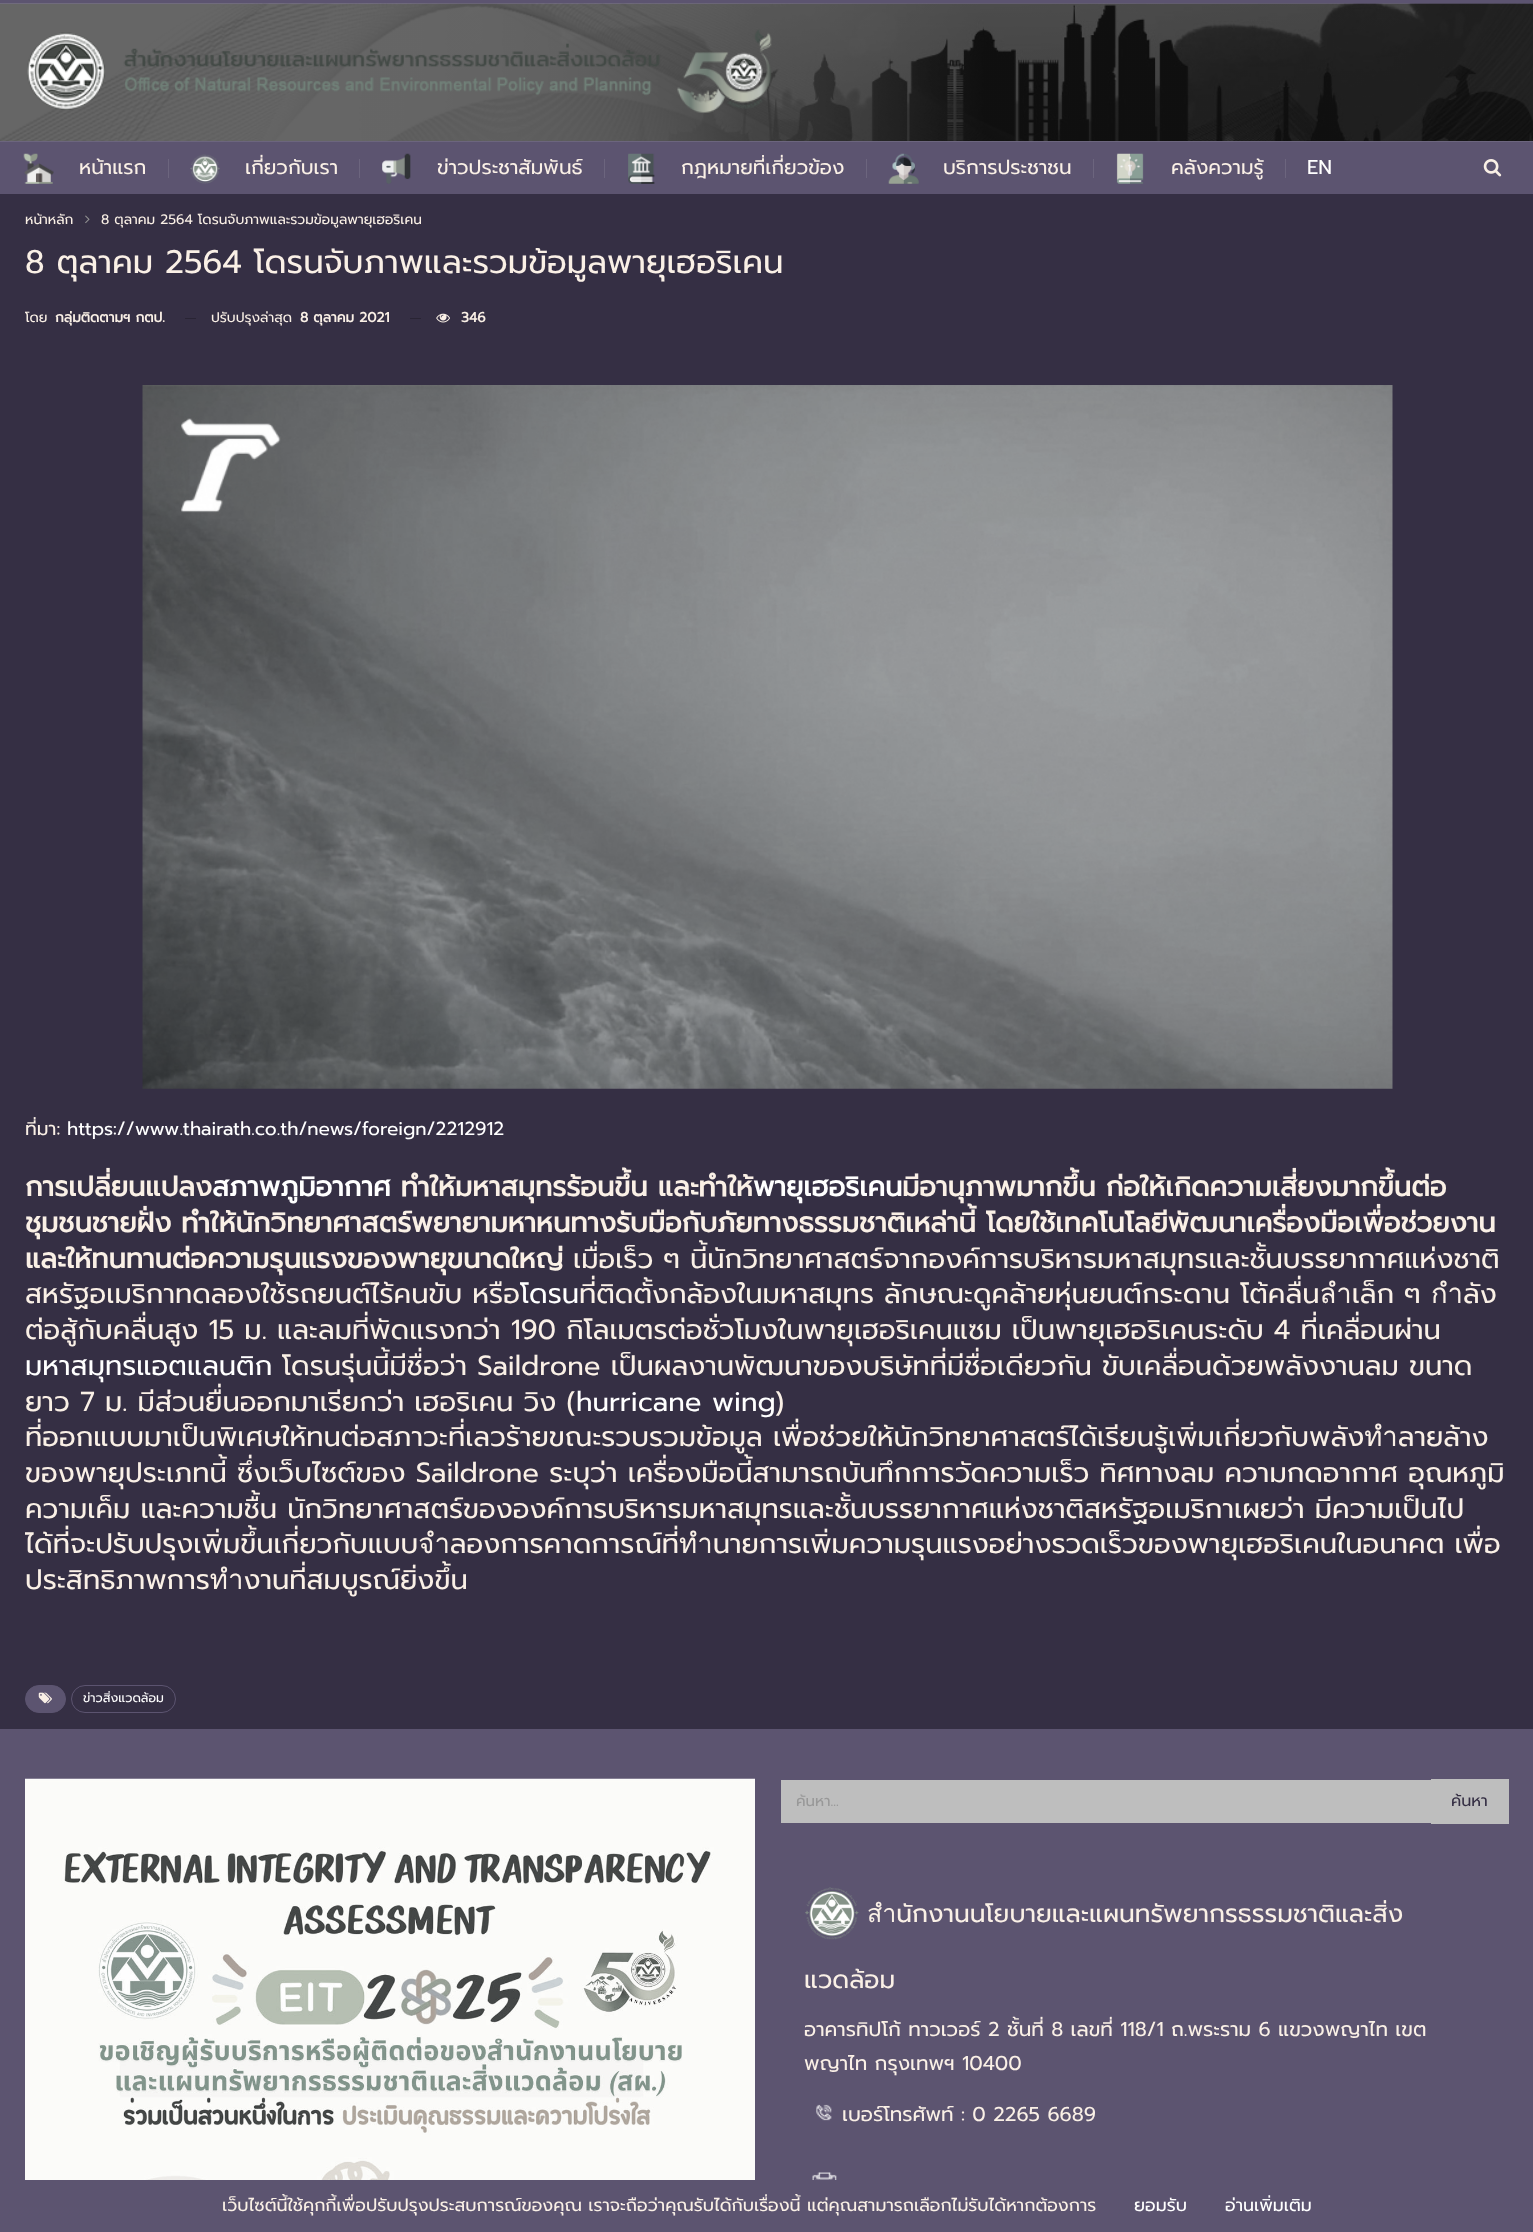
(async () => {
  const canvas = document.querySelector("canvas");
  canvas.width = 1533;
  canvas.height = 2232;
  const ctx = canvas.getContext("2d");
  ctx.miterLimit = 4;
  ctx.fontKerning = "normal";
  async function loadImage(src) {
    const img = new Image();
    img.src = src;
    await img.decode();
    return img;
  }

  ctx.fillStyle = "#352f44";
  ctx.fillRect(0, 0, 1533, 2232);
  ctx.fillStyle = "#5c5470";
  ctx.fillRect(0, 0, 1533, 4);
  ctx.drawImage(await loadImage("img/1.png"), 0, 3, 1533, 138);
  ctx.drawImage(await loadImage("img/2.png"), 27, 29, 745, 84);
  ctx.fillRect(0, 142, 1533, 52);
  ctx.fillStyle = "#6c657e";
  ctx.fillRect(0, 141, 1533, 1);
  ctx.drawImage(await loadImage("img/3.png"), 23, 153, 31, 31);
  ctx.fillRect(168, 159, 1, 19);
  ctx.drawImage(await loadImage("img/4.png"), 190, 154, 30, 30);
  ctx.fillRect(359, 159, 1, 19);
  ctx.drawImage(await loadImage("img/5.png"), 382, 153, 29, 31);
  ctx.fillRect(604, 159, 1, 19);
  ctx.drawImage(await loadImage("img/6.png"), 628, 153, 27, 31);
  ctx.fillRect(866, 159, 1, 19);
  ctx.drawImage(await loadImage("img/7.png"), 888, 153, 31, 31);
  ctx.fillRect(1093, 159, 1, 19);
  ctx.drawImage(await loadImage("img/8.png"), 1116, 153, 28, 31);
  ctx.fillRect(1285, 159, 1, 19);
  ctx.drawImage(await loadImage("img/9.png"), 1483, 159, 19, 18);
  ctx.drawImage(await loadImage("img/10.png"), 85, 215, 5, 9);
  ctx.fillStyle = "#292434";
  ctx.fillRect(185, 318, 11, 1);
  ctx.fillRect(410, 318, 11, 1);
  ctx.drawImage(await loadImage("img/11.png"), 436, 313, 14, 10);
  ctx.drawImage(await loadImage("img/12.png"), 142, 385, 1251, 704);
  ctx.fillStyle = "#5c5470";
  ctx.beginPath();
  ctx.roundRect(25.5, 1685.5, 40, 27, 13.5);
  ctx.fill();
  ctx.strokeStyle = "#5c5470";
  ctx.stroke();
  ctx.drawImage(await loadImage("img/13.png"), 38, 1692, 14, 12);
  ctx.beginPath();
  ctx.roundRect(71.5, 1685.5, 104, 27, 13.5);
  ctx.stroke();
  ctx.fillRect(0, 1729, 1533, 503);
  ctx.drawImage(await loadImage("img/14.png"), 25, 1778, 730, 402);
  ctx.fillStyle = "#bebebe";
  ctx.fillRect(781, 1780, 650, 43);
  ctx.fillRect(1431, 1779, 78, 45);
  ctx.drawImage(await loadImage("img/15.png"), 805, 1887, 54, 53);
  ctx.drawImage(await loadImage("img/16.png"), 816, 2104, 16, 17);
  ctx.drawImage(await loadImage("img/17.png"), 812, 2172, 25, 8);
  ctx.font = "20px Prompt";
  ctx.fillStyle = "#faf0e6";
  for (const [text, x, y] of [
    ["หน้าแรก", 79, 174],
    ["เกี่ยวกับเรา", 245, 174],
    ["ข่าวประชาสัมพันธ์", 437, 174],
    ["กฎหมายที่เกี่ยวข้อง", 681, 174],
    ["บริการประชาชน", 943, 174],
    ["คลังความรู้", 1171, 174],
  ]) {
    ctx.fillText(text, x, y);
  }
  ctx.fillStyle = "#ffffff";
  ctx.fillText("EN", 1307, 174);
  ctx.font = "13.75px Prompt";
  ctx.fillStyle = "#faf0e6";
  ctx.fillText("หน้าหลัก", 25, 224);
  ctx.fillText("8 ตุลาคม 2564 โดรนจับภาพและรวมข้อมูลพายุเฮอริเคน", 101, 224);
  ctx.font = "32.5px Prompt";
  ctx.fillText("8 ตุลาคม 2564 โดรนจับภาพและรวมข้อมูลพายุเฮอริเคน", 25, 273);
  ctx.font = "13.75px Prompt";
  ctx.fillText("โดย", 25, 322);
  ctx.font = "bold 13.75px Prompt";
  ctx.fillText("กลุ่มติดตามฯ กตป.", 55, 322);
  ctx.font = "13.75px Prompt";
  ctx.fillText("ปรับปรุงล่าสุด", 211, 322);
  ctx.font = "bold 13.75px Prompt";
  ctx.fillText("8 ตุลาคม 2021", 300, 322);
  ctx.fillText("346", 461, 322);
  ctx.font = "18.75px Prompt";
  ctx.fillText("ที่มา:", 25, 1135);
  ctx.fillStyle = "#ffffff";
  ctx.fillText("https://www.thairath.co.th/news/foreign/2212912", 67, 1135);
  ctx.font = "bold 27.5px Prompt";
  ctx.fillStyle = "#faf0e6";
  ctx.fillText("การเปลี่ยนแปลง", 25, 1196);
  ctx.fillStyle = "#ffffff";
  ctx.fillText("สภาพภูมิอากาศ", 212, 1196);
  ctx.fillStyle = "#faf0e6";
  ctx.fillText("ทำให้มหาสมุทรร้อนขึ้น และทำให้", 401, 1196);
  ctx.fillStyle = "#ffffff";
  ctx.fillText("พายุเฮอริเคน", 753, 1196);
  ctx.fillStyle = "#faf0e6";
  for (const [text, x, y] of [
    ["มีอานุภาพมากขึ้น ก่อให้เกิดความเสี่ยงมากขึ้นต่อ", 902, 1196],
    ["ชุมชนชายฝั่ง ทำให้นักวิทยาศาสตร์พยายามหาหนทางรับมือกับภัยทางธรรมชาติเหล่านี้ โดยใช้เทคโนโลยีพัฒนาเครื่องมือเพื่อช่วยงาน", 25, 1232],
    ["และให้ทนทานต่อความรุนแรงของพายุขนาดใหญ่", 25, 1268],
  ]) {
    ctx.fillText(text, x, y);
  }
  ctx.font = "27.5px Prompt";
  ctx.fillText("เมื่อเร็ว ๆ นี้นักวิทยาศาสตร์จากองค์การบริหารมหาสมุทรและชั้นบรรยากาศแห่งชาติ", 573, 1268);
  ctx.fillText("สหรัฐอเมริกาทดลองใช้รถยนต์ไร้คนขับ หรือ", 25, 1303);
  ctx.fillStyle = "#ffffff";
  ctx.fillText("โดรน", 520, 1303);
  ctx.fillStyle = "#faf0e6";
  ctx.fillText("ที่ติดตั้งกล้องในมหาสมุทร ลักษณะดูคล้ายหุ่นยนต์กระดาน โต้คลื่นลำเล็ก ๆ กำลัง", 579, 1303);
  ctx.fillText("ต่อสู้กับคลื่นสูง 15 ม. และลมที่พัดแรงกว่า 190 กิโลเมตรต่อชั่วโมงในพายุเฮอริเคนแซม เป็นพายุเฮอริเคนระดับ 4 ที่เคลื่อนผ่าน", 25, 1339);
  ctx.fillStyle = "#ffffff";
  ctx.fillText("มหาสมุทรแอตแลนติก", 25, 1375);
  ctx.fillStyle = "#faf0e6";
  ctx.fillText("โดรนรุ่นนี้มีชื่อว่า Saildrone เป็นผลงานพัฒนาของบริษัทที่มีชื่อเดียวกัน ขับเคลื่อนด้วยพลังงานลม ขนาด", 282, 1375);
  ctx.fillText("ยาว 7 ม. มีส่วนยื่นออกมาเรียกว่า เฮอริเคน วิง (", 25, 1411);
  ctx.fillStyle = "#ffffff";
  ctx.fillText("hurricane wing", 576, 1411);
  ctx.fillStyle = "#faf0e6";
  for (const [text, x, y] of [
    [")", 775, 1411],
    ["ที่ออกแบบมาเป็นพิเศษให้ทนต่อสภาวะที่เลวร้ายขณะรวบรวมข้อมูล เพื่อช่วยให้นักวิทยาศาสตร์ได้เรียนรู้เพิ่มเกี่ยวกับพลังทำลายล้าง", 25, 1446],
    ["ของพายุประเภทนี้ ซึ่งเว็บไซต์ของ Saildrone ระบุว่า เครื่องมือนี้สามารถบันทึกการวัดความเร็ว ทิศทางลม ความกดอากาศ อุณหภูมิ", 25, 1482],
    ["ความเค็ม และความชื้น นักวิทยาศาสตร์ขององค์การบริหารมหาสมุทรและชั้นบรรยากาศแห่งชาติสหรัฐอเมริกาเผยว่า มีความเป็นไป", 25, 1518],
    ["ได้ที่จะปรับปรุงเพิ่มขึ้นเกี่ยวกับแบบจำลองการคาดการณ์ที่ทำนายการเพิ่มความรุนแรงอย่างรวดเร็วของพายุเฮอริเคนในอนาคต เพื่อ", 25, 1553],
    ["ประสิทธิภาพการทำงานที่สมบูรณ์ยิ่งขึ้น", 25, 1589],
  ]) {
    ctx.fillText(text, x, y);
  }
  ctx.font = "12.5px Prompt";
  ctx.fillStyle = "#ffffff";
  ctx.fillText("ข่าวสิ่งแวดล้อม", 83, 1702);
  ctx.save();
  ctx.beginPath();
  ctx.rect(796, 1790, 560, 23);
  ctx.clip();
  ctx.font = "15px Prompt";
  ctx.fillStyle = "#989898";
  ctx.fillText("ค้นหา...", 796, 1806);
  ctx.restore();
  ctx.font = "16px Prompt";
  ctx.fillStyle = "#352f44";
  ctx.fillText("ค้นหา", 1451, 1806);
  ctx.font = "25px Prompt";
  ctx.fillStyle = "#faf0e6";
  ctx.fillText("สำนักงานนโยบายและแผนทรัพยากรธรรมชาติและสิ่ง", 867, 1922);
  ctx.fillText("แวดล้อม", 804, 1988);
  ctx.font = "20px Prompt";
  for (const [text, x, y] of [
    ["อาคารทิปโก้ ทาวเวอร์ 2 ชั้นที่ 8 เลขที่ 118/1 ถ.พระราม 6 แขวงพญาไท เขต", 804, 2036],
    ["พญาไท กรุงเทพฯ 10400", 804, 2070],
    ["เบอร์โทรศัพท์ : 0 2265 6689", 842, 2121],
  ]) {
    ctx.fillText(text, x, y);
  }
  ctx.font = "17.5px Prompt";
  ctx.fillText("เว็บไซต์นี้ใช้คุกกี้เพื่อปรับปรุงประสบการณ์ของคุณ เราจะถือว่าคุณรับได้กับเรื่องนี้ แต่คุณสามารถเลือกไม่รับได้หากต้องการ", 222, 2211);
  ctx.fillStyle = "#ffffff";
  ctx.fillText("ยอมรับ", 1134, 2211);
  ctx.fillText("อ่านเพิ่มเติม", 1225, 2211);
})();
